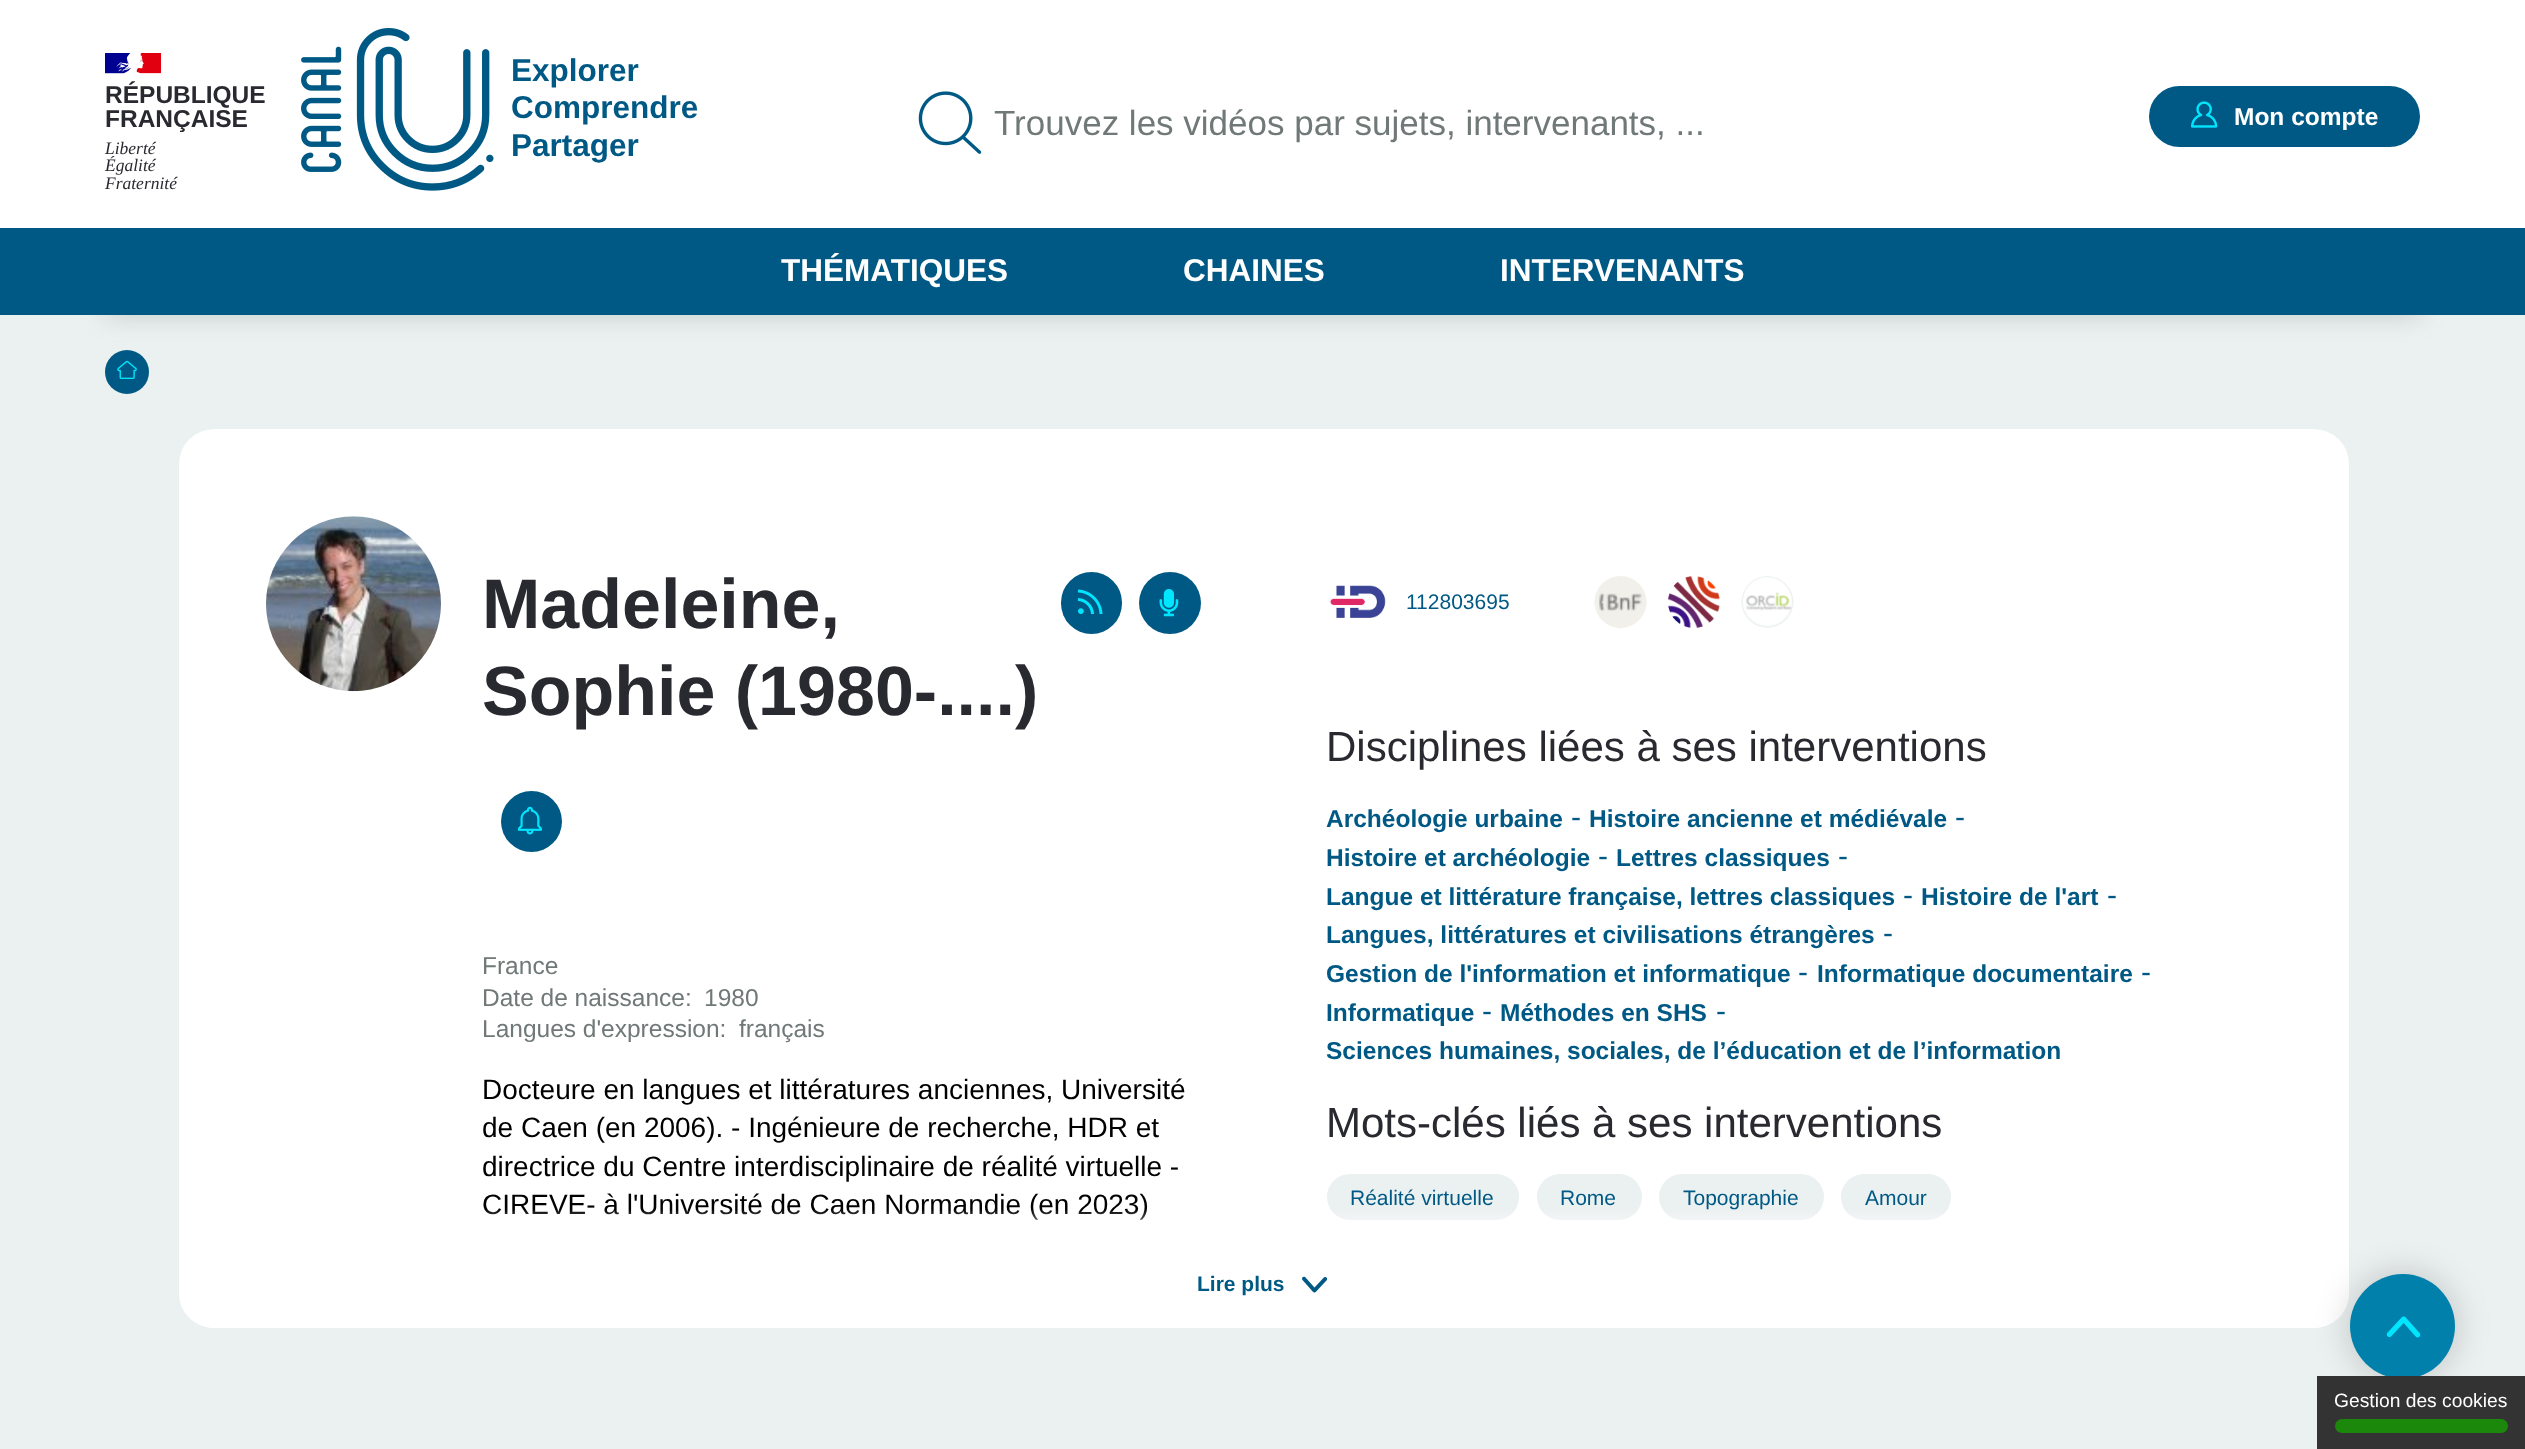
(async () => {
  const canvas = document.querySelector("canvas");
  canvas.width = 2525;
  canvas.height = 1449;
  const ctx = canvas.getContext("2d");
  ctx.miterLimit = 4;
  ctx.fontKerning = "normal";
  async function loadImage(src) {
    const img = new Image();
    img.src = src;
    await img.decode();
    return img;
  }
  let gradient, path;

  ctx.fillStyle = "#ebf0f0";
  ctx.fillRect(0, 0, 2525, 1449);
  ctx.fillStyle = "#005984";
  ctx.beginPath();
  ctx.arc(127, 372, 22, 0, Math.PI * 2);
  ctx.fill();
  ctx.fillStyle = "rgba(112, 120, 120, 0.3)";
  ctx.filter = "blur(13px)";
  ctx.beginPath();
  ctx.rect(105, 0, 2315, 315);
  ctx.fill();
  ctx.filter = "none";
  ctx.fillStyle = "#ffffff";
  ctx.fillRect(0, 0, 2525, 228);
  ctx.drawImage(await loadImage("img/1.png"), 105, 53, 56, 21);
  ctx.drawImage(await loadImage("img/2.png"), 301, 28, 193, 163);
  ctx.drawImage(await loadImage("img/3.png"), 918, 91, 64, 63);
  ctx.fillStyle = "#005984";
  ctx.beginPath();
  ctx.roundRect(2149, 86, 271, 61, 30.5);
  ctx.fill();
  ctx.drawImage(await loadImage("img/4.png"), 2191, 101, 27, 27);
  ctx.fillRect(0, 228, 2525, 87);
  ctx.drawImage(await loadImage("img/5.png"), 117, 360, 20, 19);
  ctx.fillStyle = "#ffffff";
  ctx.beginPath();
  ctx.roundRect(179, 429, 2170, 899, 35);
  ctx.fill();
  ctx.drawImage(await loadImage("img/6.png"), 266, 516, 175, 176);
  ctx.fillStyle = "#005984";
  ctx.beginPath();
  ctx.roundRect(1061, 572, 61, 62, 30.5);
  ctx.fill();
  ctx.drawImage(await loadImage("img/7.png"), 1078, 589, 25, 25);
  ctx.beginPath();
  ctx.arc(1170, 603, 31, 0, Math.PI * 2);
  ctx.fill();
  ctx.drawImage(await loadImage("img/8.png"), 1159, 589, 20, 28);
  ctx.beginPath();
  ctx.arc(531.5, 821.5, 30.5, 0, Math.PI * 2);
  ctx.fill();
  ctx.drawImage(await loadImage("img/9.png"), 517, 806, 25, 29);
  ctx.drawImage(await loadImage("img/10.png"), 1330, 585, 56, 33);
  ctx.drawImage(await loadImage("img/11.png"), 1594, 575, 53, 54);
  ctx.drawImage(await loadImage("img/12.png"), 1668, 576, 52, 52);
  ctx.drawImage(await loadImage("img/13.png"), 1741, 575, 53, 53);
  ctx.fillStyle = "#ebf0f0";
  ctx.beginPath();
  ctx.roundRect(1327, 1174, 192, 46, 23);
  ctx.fill();
  ctx.beginPath();
  ctx.roundRect(1537, 1174, 105, 46, 23);
  ctx.fill();
  ctx.beginPath();
  ctx.roundRect(1659, 1174, 165, 46, 23);
  ctx.fill();
  ctx.beginPath();
  ctx.roundRect(1841, 1174, 110, 46, 23);
  ctx.fill();
  ctx.beginPath();
  ctx.roundRect(1327, 1318, 166, 10, [22.5, 22.5, 0, 0]);
  ctx.fill();
  ctx.beginPath();
  ctx.roundRect(1510, 1318, 184, 10, [22.5, 22.5, 0, 0]);
  ctx.fill();
  ctx.beginPath();
  ctx.roundRect(1712, 1318, 448, 10, [22.5, 22.5, 0, 0]);
  ctx.fill();
  ctx.fillStyle = "#ffffff";
  ctx.beginPath();
  ctx.roundRect(179, 1241, 2170, 87, [0, 0, 35, 35]);
  ctx.fill();
  ctx.drawImage(await loadImage("img/14.png"), 1302, 1276, 26, 17);
  ctx.fillStyle = "rgba(0, 0, 0, 0.2)";
  ctx.filter = "blur(17.5px)";
  ctx.beginPath();
  ctx.roundRect(2350, 1274, 105, 105, 52.5);
  ctx.fill();
  ctx.filter = "none";
  ctx.fillStyle = "#0080ab";
  path = new Path2D("M2403 1379C2374 1379 2350 1355 2350 1326C2350 1298 2374 1274 2403 1274C2432 1274 2455 1298 2455 1326C2455 1355 2432 1379 2403 1379Z");
  ctx.fill(path);
  ctx.drawImage(await loadImage("img/15.png"), 2386, 1316, 35, 22);
  ctx.fillStyle = "#333333";
  ctx.fillRect(2317, 1376, 208, 73);
  ctx.fillStyle = "#1b870b";
  ctx.beginPath();
  ctx.roundRect(2335, 1419, 173, 14, 7);
  ctx.fill();
  ctx.font = "bold 24.5px Liberation Sans";
  ctx.fillStyle = "#292930";
  ctx.fillText("RÉPUBLIQUE", 105, 103);
  ctx.fillText("FRANÇAISE", 105, 127);
  ctx.font = "italic 17.5px Liberation Serif";
  for (const [text, x, y] of [
    ["Liberté", 105, 154],
    ["Égalité", 105, 171],
    ["Fraternité", 105, 189],
  ]) {
    ctx.fillText(text, x, y);
  }
  ctx.font = "bold 31.5px Liberation Sans";
  ctx.fillStyle = "#005984";
  for (const [text, x, y] of [
    ["Explorer", 511, 81],
    ["Comprendre", 511, 118],
    ["Partager", 511, 156],
  ]) {
    ctx.fillText(text, x, y);
  }
  ctx.font = "35px Liberation Sans";
  ctx.fillStyle = "#707878";
  ctx.fillText("Trouvez les vidéos par sujets, intervenants, ...", 994, 135);
  ctx.font = "bold 24.5px Liberation Sans";
  ctx.fillStyle = "#ffffff";
  ctx.fillText("Mon compte", 2234, 125);
  ctx.font = "bold 31.5px Liberation Sans";
  for (const [text, x, y] of [
    ["THÉMATIQUES", 781, 281],
    ["CHAINES", 1183, 281],
    ["INTERVENANTS", 1500, 281],
  ]) {
    ctx.fillText(text, x, y);
  }
  ctx.font = "bold 70px Liberation Sans";
  ctx.fillStyle = "#292930";
  ctx.fillText("Madeleine,", 482, 628);
  ctx.fillText("Sophie (1980-....)", 482, 715);
  ctx.font = "24.5px Liberation Sans";
  ctx.fillStyle = "#707878";
  for (const [text, x, y] of [
    ["France", 482, 974],
    ["Date de naissance:", 482, 1006],
    ["1980", 704, 1006],
    ["Langues d'expression:", 482, 1037],
    ["français", 739, 1037],
  ]) {
    ctx.fillText(text, x, y);
  }
  ctx.font = "28px Liberation Sans";
  ctx.fillStyle = "#000000";
  for (const [text, x, y] of [
    ["Docteure en langues et littératures anciennes, Université", 482, 1099],
    ["de Caen (en 2006). - Ingénieure de recherche, HDR et", 482, 1137],
    ["directrice du Centre interdisciplinaire de réalité virtuelle -", 482, 1176],
    ["CIREVE- à l'Université de Caen Normandie (en 2023)", 482, 1214],
  ]) {
    ctx.fillText(text, x, y);
  }
  ctx.font = "21px Liberation Sans";
  ctx.fillStyle = "#005984";
  ctx.fillText("112803695", 1406, 609);
  ctx.font = "42px Liberation Sans";
  ctx.fillStyle = "#292930";
  ctx.fillText("Disciplines liées à ses interventions", 1326, 761);
  ctx.font = "bold 24.5px Liberation Sans";
  ctx.fillStyle = "#005984";
  ctx.fillText("Archéologie urbaine", 1326, 827);
  ctx.font = "30px Liberation Sans";
  ctx.fillText("-", 1571, 827);
  ctx.font = "bold 24.5px Liberation Sans";
  ctx.fillText("Histoire ancienne et médiévale", 1589, 827);
  ctx.font = "30px Liberation Sans";
  ctx.fillText("-", 1955, 827);
  ctx.font = "bold 24.5px Liberation Sans";
  ctx.fillText("Histoire et archéologie", 1326, 866);
  ctx.font = "30px Liberation Sans";
  ctx.fillText("-", 1598, 866);
  ctx.font = "bold 24.5px Liberation Sans";
  ctx.fillText("Lettres classiques", 1616, 866);
  ctx.font = "30px Liberation Sans";
  ctx.fillText("-", 1838, 866);
  ctx.font = "bold 24.5px Liberation Sans";
  ctx.fillText("Langue et littérature française, lettres classiques", 1326, 905);
  ctx.font = "30px Liberation Sans";
  ctx.fillText("-", 1903, 905);
  ctx.font = "bold 24.5px Liberation Sans";
  ctx.fillText("Histoire de l'art", 1921, 905);
  ctx.font = "30px Liberation Sans";
  ctx.fillText("-", 2107, 905);
  ctx.font = "bold 24.5px Liberation Sans";
  ctx.fillText("Langues, littératures et civilisations étrangères", 1326, 943);
  ctx.font = "30px Liberation Sans";
  ctx.fillText("-", 1883, 943);
  ctx.font = "bold 24.5px Liberation Sans";
  ctx.fillText("Gestion de l'information et informatique", 1326, 982);
  ctx.font = "30px Liberation Sans";
  ctx.fillText("-", 1798, 982);
  ctx.font = "bold 24.5px Liberation Sans";
  ctx.fillText("Informatique documentaire", 1817, 982);
  ctx.font = "30px Liberation Sans";
  ctx.fillText("-", 2141, 982);
  ctx.font = "bold 24.5px Liberation Sans";
  ctx.fillText("Informatique", 1326, 1021);
  ctx.font = "30px Liberation Sans";
  ctx.fillText("-", 1482, 1021);
  ctx.font = "bold 24.5px Liberation Sans";
  ctx.fillText("Méthodes en SHS", 1500, 1021);
  ctx.font = "30px Liberation Sans";
  ctx.fillText("-", 1716, 1021);
  ctx.font = "bold 24.5px Liberation Sans";
  ctx.fillText("Sciences humaines, sociales, de l’éducation et de l’information", 1326, 1059);
  ctx.font = "42px Liberation Sans";
  ctx.fillStyle = "#292930";
  ctx.fillText("Mots-clés liés à ses interventions", 1326, 1137);
  ctx.font = "21px Liberation Sans";
  ctx.fillStyle = "#005984";
  for (const [text, x, y] of [
    ["Réalité virtuelle", 1350, 1205],
    ["Rome", 1560, 1205],
    ["Topographie", 1683, 1205],
    ["Amour", 1865, 1205],
  ]) {
    ctx.fillText(text, x, y);
  }
  gradient = ctx.createLinearGradient(1264, 1209, 1264, 1241);
  gradient.addColorStop(0, "rgba(255, 255, 255, 0)");
  gradient.addColorStop(1, "#ffffff");
  ctx.fillStyle = gradient;
  ctx.fillRect(485, 1210, 1458, 10);
  ctx.font = "bold 21px Liberation Sans";
  ctx.fillStyle = "#005984";
  ctx.fillText("Lire plus", 1197, 1291);
  ctx.font = "19.25px Liberation Sans";
  ctx.fillStyle = "#ffffff";
  ctx.fillText("Gestion des cookies", 2334, 1407);
})();
